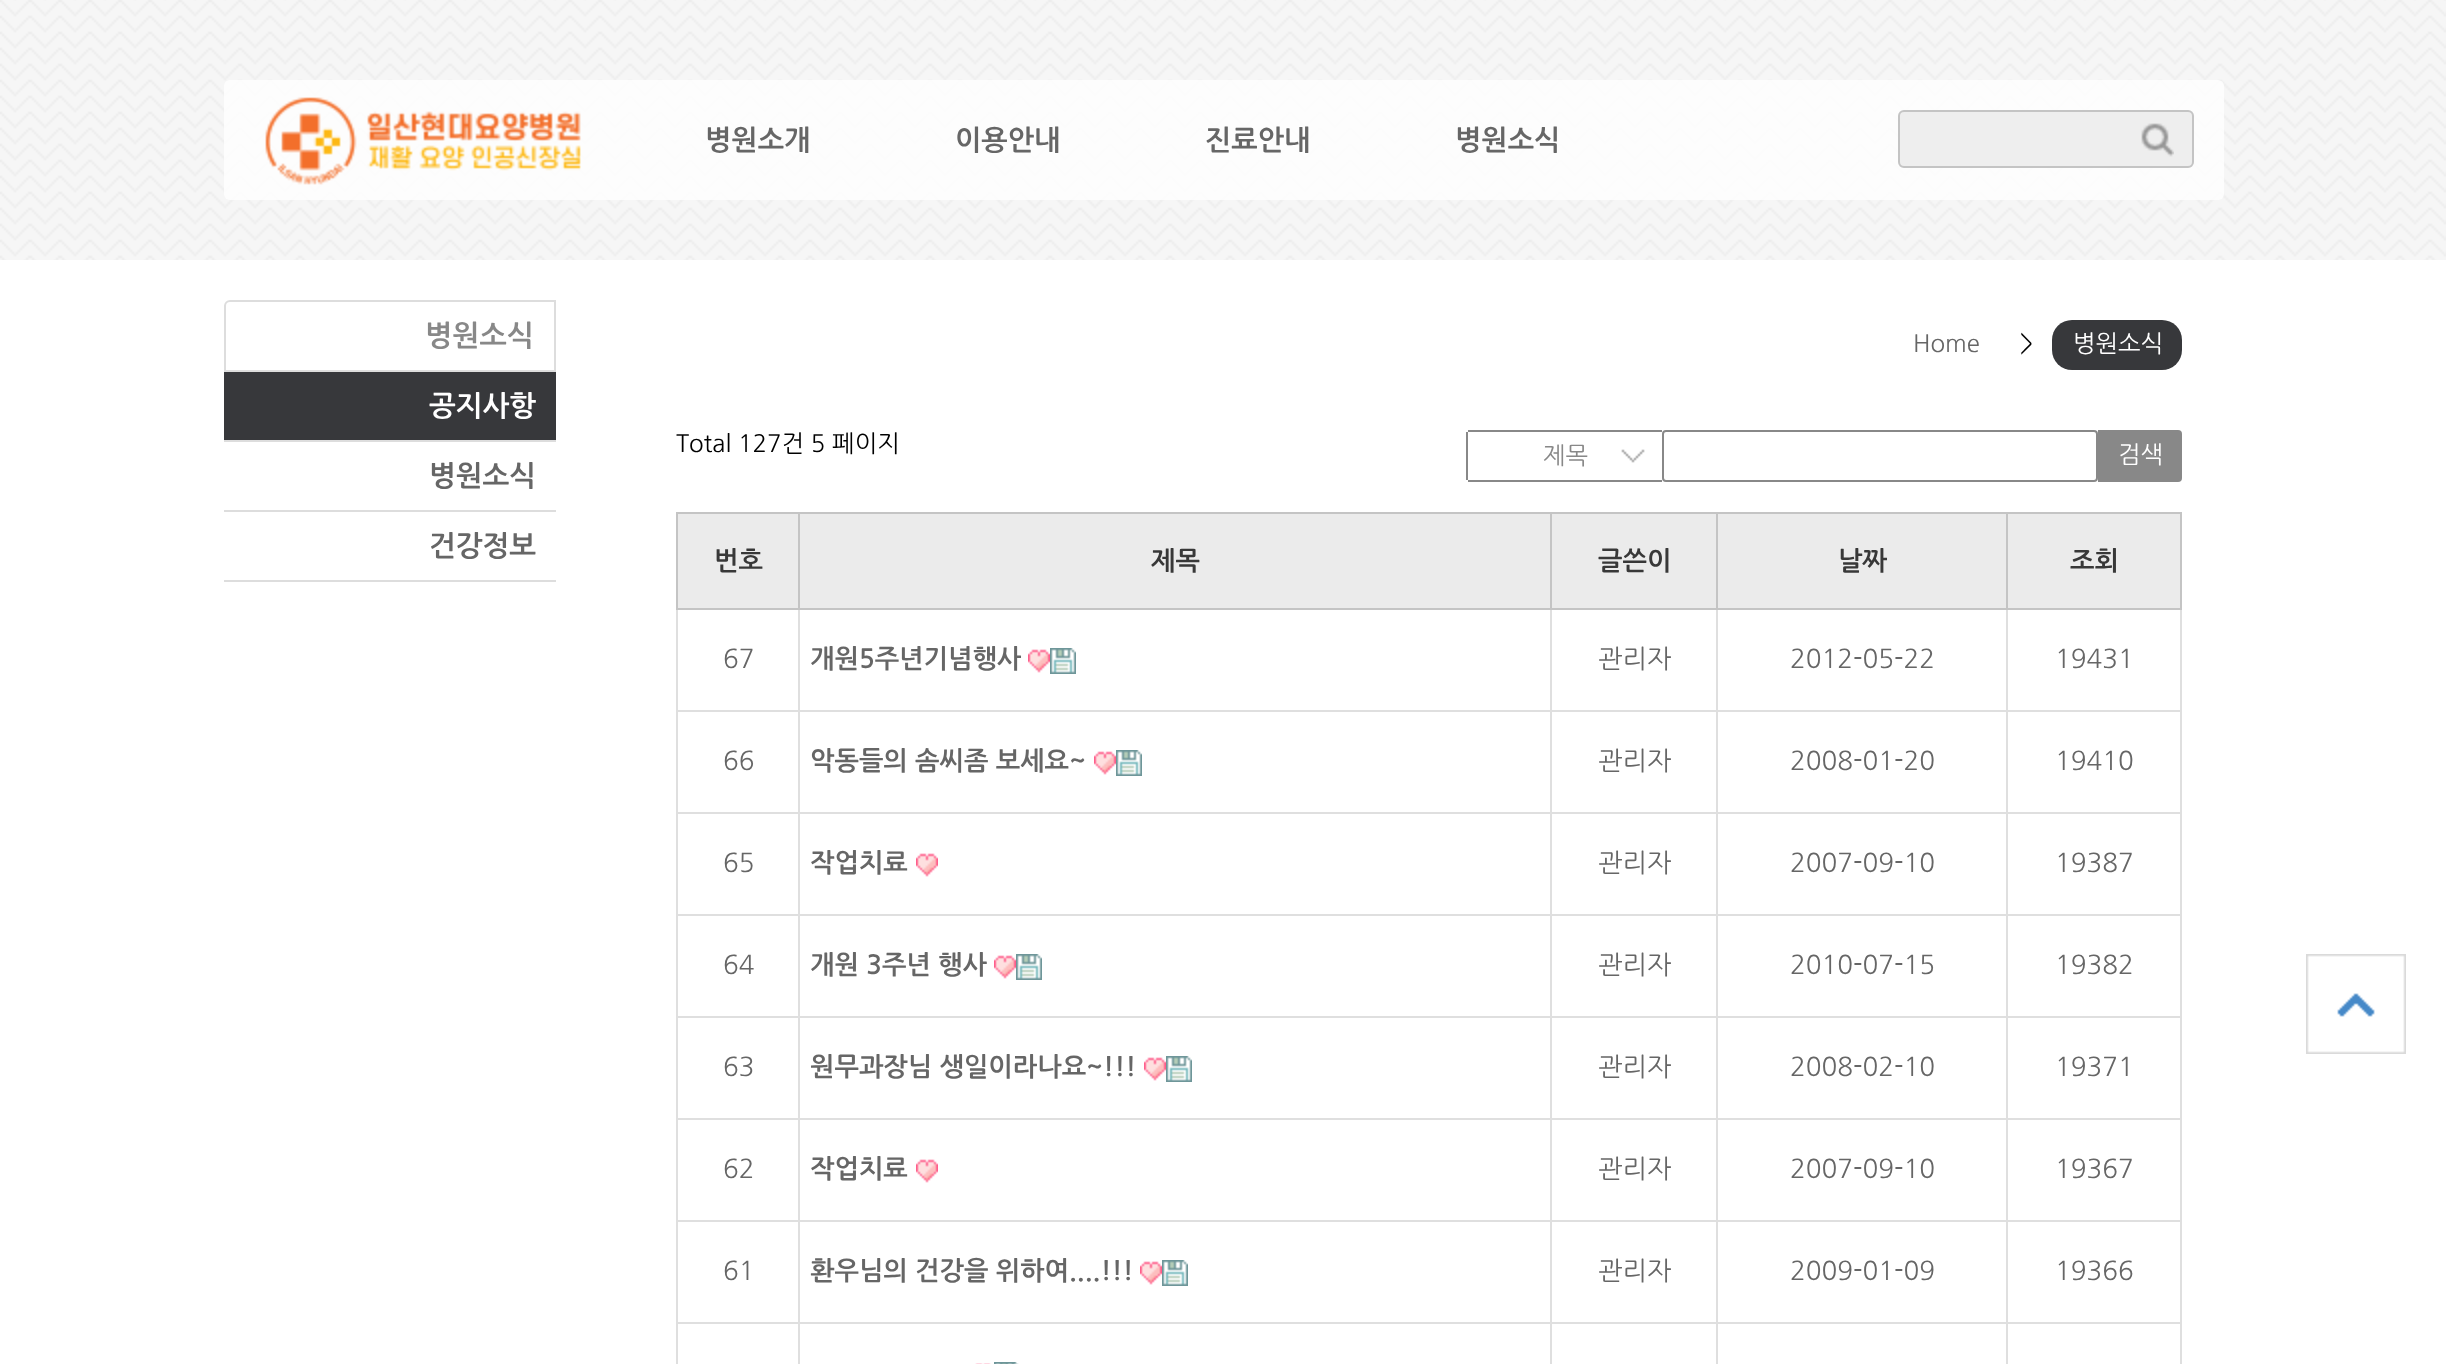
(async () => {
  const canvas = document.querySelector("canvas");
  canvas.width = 2446;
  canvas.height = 1364;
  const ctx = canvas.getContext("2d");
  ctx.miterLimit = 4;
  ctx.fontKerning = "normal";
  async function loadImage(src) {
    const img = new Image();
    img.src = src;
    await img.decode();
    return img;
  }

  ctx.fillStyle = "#ffffff";
  ctx.fillRect(0, 0, 2446, 1364);
  ctx.drawImage(await loadImage("img/3.png"), 0, 0, 2446, 260);
  ctx.fillStyle = "rgba(255, 255, 255, 0.8)";
  ctx.beginPath();
  ctx.roundRect(224, 80, 2000, 120, 6);
  ctx.fill();
  ctx.drawImage(await loadImage("img/1.png"), 265, 97, 316, 88);
  ctx.fillStyle = "#eeeeee";
  ctx.beginPath();
  ctx.roundRect(1898, 110, 296, 58, 6);
  ctx.fill();
  ctx.beginPath();
  ctx.roundRect(1899, 111, 294, 56, 5);
  ctx.strokeStyle = "rgba(100, 100, 100, 0.3)";
  ctx.lineWidth = 2;
  ctx.stroke();
  ctx.drawImage(await loadImage("img/2.png"), 2141, 123, 33, 34);
  ctx.beginPath();
  ctx.roundRect(225, 301, 330, 70, [5, 0, 0, 0]);
  ctx.strokeStyle = "#dddddd";
  ctx.stroke();
  for (const [x, y, w, h, color] of [
    [224, 372, 332, 68, "#37383b"],
    [224, 440, 332, 2, "#dddddd"],
    [224, 510, 332, 2, "#dddddd"],
    [224, 580, 332, 2, "#dddddd"],
  ]) {
    ctx.fillStyle = color;
    ctx.fillRect(x, y, w, h);
  }
  ctx.fillStyle = "#37383b";
  ctx.beginPath();
  ctx.roundRect(2052, 320, 130, 50, 20);
  ctx.fill();
  ctx.drawImage(await loadImage("img/4.png"), 1621, 449, 24, 14);
  for (const [x, y, w, h, color] of [
    [1468, 430, 194, 2, "#888888"],
    [1468, 480, 194, 2, "#888888"],
    [1466, 432, 2, 48, "#888888"],
  ]) {
    ctx.fillStyle = color;
    ctx.fillRect(x, y, w, h);
  }
  ctx.beginPath();
  ctx.roundRect(1663, 431, 434, 50, 3);
  ctx.strokeStyle = "#888888";
  ctx.stroke();
  ctx.beginPath();
  ctx.roundRect(2098, 430, 84, 52, [0, 4, 4, 0]);
  ctx.fill();
  for (const [x, y, w, h, color] of [
    [678, 514, 120, 94, "#ebebeb"],
    [2006, 512, 176, 2, "#c4c4c4"],
    [2006, 710, 176, 2, "#dfdfdf"],
    [2006, 812, 176, 2, "#dfdfdf"],
    [2006, 914, 176, 2, "#dfdfdf"],
    [2006, 1016, 176, 2, "#dfdfdf"],
    [2006, 1118, 176, 2, "#dfdfdf"],
    [2006, 1220, 176, 2, "#dfdfdf"],
    [2006, 1322, 176, 2, "#dfdfdf"],
    [2180, 1322, 2, 42, "#dfdfdf"],
    [2180, 1220, 2, 104, "#dfdfdf"],
    [2180, 1118, 2, 104, "#dfdfdf"],
    [2180, 1016, 2, 104, "#dfdfdf"],
    [2180, 914, 2, 104, "#dfdfdf"],
    [2180, 812, 2, 104, "#dfdfdf"],
    [2180, 608, 2, 206, "#dfdfdf"],
    [2180, 512, 2, 98, "#c4c4c4"],
    [2006, 1322, 2, 42, "#dfdfdf"],
    [1716, 1322, 292, 2, "#dfdfdf"],
    [2006, 1220, 2, 104, "#dfdfdf"],
    [1716, 1220, 292, 2, "#dfdfdf"],
    [2006, 1118, 2, 104, "#dfdfdf"],
    [1716, 1118, 292, 2, "#dfdfdf"],
    [2006, 1016, 2, 104, "#dfdfdf"],
    [1716, 1016, 292, 2, "#dfdfdf"],
    [2006, 914, 2, 104, "#dfdfdf"],
    [1716, 914, 292, 2, "#dfdfdf"],
    [2006, 812, 2, 104, "#dfdfdf"],
    [1716, 812, 292, 2, "#dfdfdf"],
    [2006, 710, 2, 104, "#dfdfdf"],
    [1716, 710, 292, 2, "#dfdfdf"],
    [2006, 608, 2, 104, "#dfdfdf"],
    [2006, 608, 176, 2, "#c4c4c4"],
    [2006, 512, 2, 98, "#c4c4c4"],
    [1716, 512, 292, 2, "#c4c4c4"],
    [1716, 1322, 2, 42, "#dfdfdf"],
    [1550, 1322, 168, 2, "#dfdfdf"],
    [1716, 1220, 2, 104, "#dfdfdf"],
    [1550, 1220, 168, 2, "#dfdfdf"],
    [1716, 1118, 2, 104, "#dfdfdf"],
    [1550, 1118, 168, 2, "#dfdfdf"],
    [1716, 1016, 2, 104, "#dfdfdf"],
    [1550, 1016, 168, 2, "#dfdfdf"],
    [1716, 914, 2, 104, "#dfdfdf"],
    [1550, 914, 168, 2, "#dfdfdf"],
    [1716, 812, 2, 104, "#dfdfdf"],
    [1550, 812, 168, 2, "#dfdfdf"],
    [1716, 710, 2, 104, "#dfdfdf"],
    [1550, 710, 168, 2, "#dfdfdf"],
    [1716, 608, 2, 104, "#dfdfdf"],
    [1716, 608, 292, 2, "#c4c4c4"],
    [1716, 512, 2, 98, "#c4c4c4"],
    [1550, 512, 168, 2, "#c4c4c4"],
    [1550, 1322, 2, 42, "#dfdfdf"],
    [798, 1322, 754, 2, "#dfdfdf"],
    [1550, 1220, 2, 104, "#dfdfdf"],
    [798, 1220, 754, 2, "#dfdfdf"],
    [1550, 1118, 2, 104, "#dfdfdf"],
    [798, 1118, 754, 2, "#dfdfdf"],
    [1550, 1016, 2, 104, "#dfdfdf"],
    [798, 1016, 754, 2, "#dfdfdf"],
    [1550, 914, 2, 104, "#dfdfdf"],
    [798, 914, 754, 2, "#dfdfdf"],
    [1550, 812, 2, 104, "#dfdfdf"],
    [798, 812, 754, 2, "#dfdfdf"],
    [1550, 710, 2, 104, "#dfdfdf"],
    [798, 710, 754, 2, "#dfdfdf"],
    [1550, 608, 2, 104, "#dfdfdf"],
    [1550, 608, 168, 2, "#c4c4c4"],
    [1550, 512, 2, 98, "#c4c4c4"],
    [798, 512, 754, 2, "#c4c4c4"],
    [798, 1322, 2, 42, "#dfdfdf"],
    [676, 1322, 124, 2, "#dfdfdf"],
    [798, 1220, 2, 104, "#dfdfdf"],
    [676, 1220, 124, 2, "#dfdfdf"],
    [798, 1118, 2, 104, "#dfdfdf"],
    [676, 1118, 124, 2, "#dfdfdf"],
    [798, 1016, 2, 104, "#dfdfdf"],
    [676, 1016, 124, 2, "#dfdfdf"],
    [798, 914, 2, 104, "#dfdfdf"],
    [676, 914, 124, 2, "#dfdfdf"],
    [798, 812, 2, 104, "#dfdfdf"],
    [676, 812, 124, 2, "#dfdfdf"],
    [798, 710, 2, 104, "#dfdfdf"],
    [676, 710, 124, 2, "#dfdfdf"],
    [798, 608, 2, 104, "#dfdfdf"],
    [798, 608, 754, 2, "#c4c4c4"],
    [798, 512, 2, 98, "#c4c4c4"],
    [676, 512, 124, 2, "#c4c4c4"],
    [676, 1322, 2, 42, "#dfdfdf"],
    [676, 1220, 2, 104, "#dfdfdf"],
    [676, 1118, 2, 104, "#dfdfdf"],
    [676, 1016, 2, 104, "#dfdfdf"],
    [676, 914, 2, 104, "#dfdfdf"],
    [676, 812, 2, 104, "#dfdfdf"],
    [676, 608, 2, 206, "#dfdfdf"],
    [676, 608, 124, 2, "#c4c4c4"],
    [676, 512, 2, 98, "#c4c4c4"],
    [800, 514, 750, 94, "#ebebeb"],
    [1552, 514, 164, 94, "#ebebeb"],
    [1718, 514, 288, 94, "#ebebeb"],
    [2008, 514, 172, 94, "#ebebeb"],
  ]) {
    ctx.fillStyle = color;
    ctx.fillRect(x, y, w, h);
  }
  ctx.drawImage(await loadImage("img/5.png"), 1028, 649, 22, 24);
  ctx.drawImage(await loadImage("img/6.png"), 1050, 648, 26, 26);
  ctx.drawImage(await loadImage("img/5.png"), 1094, 751, 22, 24);
  ctx.drawImage(await loadImage("img/6.png"), 1116, 750, 26, 26);
  ctx.drawImage(await loadImage("img/5.png"), 916, 853, 22, 24);
  ctx.drawImage(await loadImage("img/5.png"), 994, 955, 22, 24);
  ctx.drawImage(await loadImage("img/6.png"), 1016, 954, 26, 26);
  ctx.drawImage(await loadImage("img/5.png"), 1144, 1057, 22, 24);
  ctx.drawImage(await loadImage("img/6.png"), 1166, 1056, 26, 26);
  ctx.drawImage(await loadImage("img/5.png"), 916, 1159, 22, 24);
  ctx.drawImage(await loadImage("img/5.png"), 1140, 1261, 22, 24);
  ctx.drawImage(await loadImage("img/6.png"), 1162, 1260, 26, 26);
  ctx.drawImage(await loadImage("img/7.png"), 975, 1363, 16, 1);
  ctx.drawImage(await loadImage("img/8.png"), 994, 1362, 25, 2);
  ctx.drawImage(await loadImage("img/9.png"), 2306, 954, 100, 100);
  ctx.font = "bold 28px NanumGothic";
  ctx.fillStyle = "#666666";
  for (const [text, x, y] of [
    ["병원소개", 705, 150],
    ["이용안내", 955, 150],
    ["진료안내", 1205, 150],
    ["병원소식", 1455, 150],
  ]) {
    ctx.fillText(text, x, y);
  }
  ctx.font = "bold 29px NanumGothic";
  ctx.fillStyle = "#888888";
  ctx.fillText("병원소식", 425, 346);
  ctx.font = "bold 28.5px NanumGothic";
  ctx.fillStyle = "#ffffff";
  ctx.fillText("공지사항", 429, 416);
  ctx.fillStyle = "#666666";
  ctx.fillText("병원소식", 429, 486);
  ctx.fillText("건강정보", 429, 556);
  ctx.font = "24px NanumGothic";
  ctx.fillText("Home", 1913, 352);
  ctx.fillStyle = "#000000";
  ctx.fillText(">", 2020, 352);
  ctx.fillStyle = "#ffffff";
  ctx.fillText("병원소식", 2073, 352);
  ctx.fillStyle = "#000000";
  ctx.fillText("Total 127건 5 페이지", 676, 452);
  ctx.fillStyle = "#888888";
  ctx.fillText("제목", 1543, 464);
  ctx.fillStyle = "#ffffff";
  ctx.fillText("검색", 2118, 463);
  ctx.font = "bold 26px NanumGothic";
  ctx.fillStyle = "#383838";
  for (const [text, x, y] of [
    ["번호", 714, 570],
    ["제목", 1151, 570],
    ["글쓴이", 1598, 570],
    ["날짜", 1838, 570],
    ["조회", 2070, 570],
  ]) {
    ctx.fillText(text, x, y);
  }
  ctx.font = "26px NanumGothic";
  ctx.fillStyle = "#666666";
  ctx.fillText("67", 723, 668);
  ctx.font = "bold 26px NanumGothic";
  ctx.fillText("개원5주년기념행사", 810, 668);
  ctx.font = "26px NanumGothic";
  for (const [text, x, y] of [
    ["관리자", 1598, 668],
    ["2012-05-22", 1790, 668],
    ["19431", 2055, 668],
    ["66", 723, 770],
  ]) {
    ctx.fillText(text, x, y);
  }
  ctx.font = "bold 26px NanumGothic";
  ctx.fillText("악동들의 솜씨좀 보세요~", 810, 770);
  ctx.font = "26px NanumGothic";
  for (const [text, x, y] of [
    ["관리자", 1598, 770],
    ["2008-01-20", 1790, 770],
    ["19410", 2055, 770],
    ["65", 723, 872],
  ]) {
    ctx.fillText(text, x, y);
  }
  ctx.font = "bold 26px NanumGothic";
  ctx.fillText("작업치료", 810, 872);
  ctx.font = "26px NanumGothic";
  for (const [text, x, y] of [
    ["관리자", 1598, 872],
    ["2007-09-10", 1790, 872],
    ["19387", 2055, 872],
    ["64", 723, 974],
  ]) {
    ctx.fillText(text, x, y);
  }
  ctx.font = "bold 26px NanumGothic";
  ctx.fillText("개원 3주년 행사", 810, 974);
  ctx.font = "26px NanumGothic";
  for (const [text, x, y] of [
    ["관리자", 1598, 974],
    ["2010-07-15", 1790, 974],
    ["19382", 2055, 974],
    ["63", 723, 1076],
  ]) {
    ctx.fillText(text, x, y);
  }
  ctx.font = "bold 26px NanumGothic";
  ctx.fillText("원무과장님 생일이라나요~!!!", 810, 1076);
  ctx.font = "26px NanumGothic";
  for (const [text, x, y] of [
    ["관리자", 1598, 1076],
    ["2008-02-10", 1790, 1076],
    ["19371", 2055, 1076],
    ["62", 723, 1178],
  ]) {
    ctx.fillText(text, x, y);
  }
  ctx.font = "bold 26px NanumGothic";
  ctx.fillText("작업치료", 810, 1178);
  ctx.font = "26px NanumGothic";
  for (const [text, x, y] of [
    ["관리자", 1598, 1178],
    ["2007-09-10", 1790, 1178],
    ["19367", 2055, 1178],
    ["61", 723, 1280],
  ]) {
    ctx.fillText(text, x, y);
  }
  ctx.font = "bold 26px NanumGothic";
  ctx.fillText("환우님의 건강을 위하여....!!!", 810, 1280);
  ctx.font = "26px NanumGothic";
  for (const [text, x, y] of [
    ["관리자", 1598, 1280],
    ["2009-01-09", 1790, 1280],
    ["19366", 2055, 1280],
  ]) {
    ctx.fillText(text, x, y);
  }
})();
